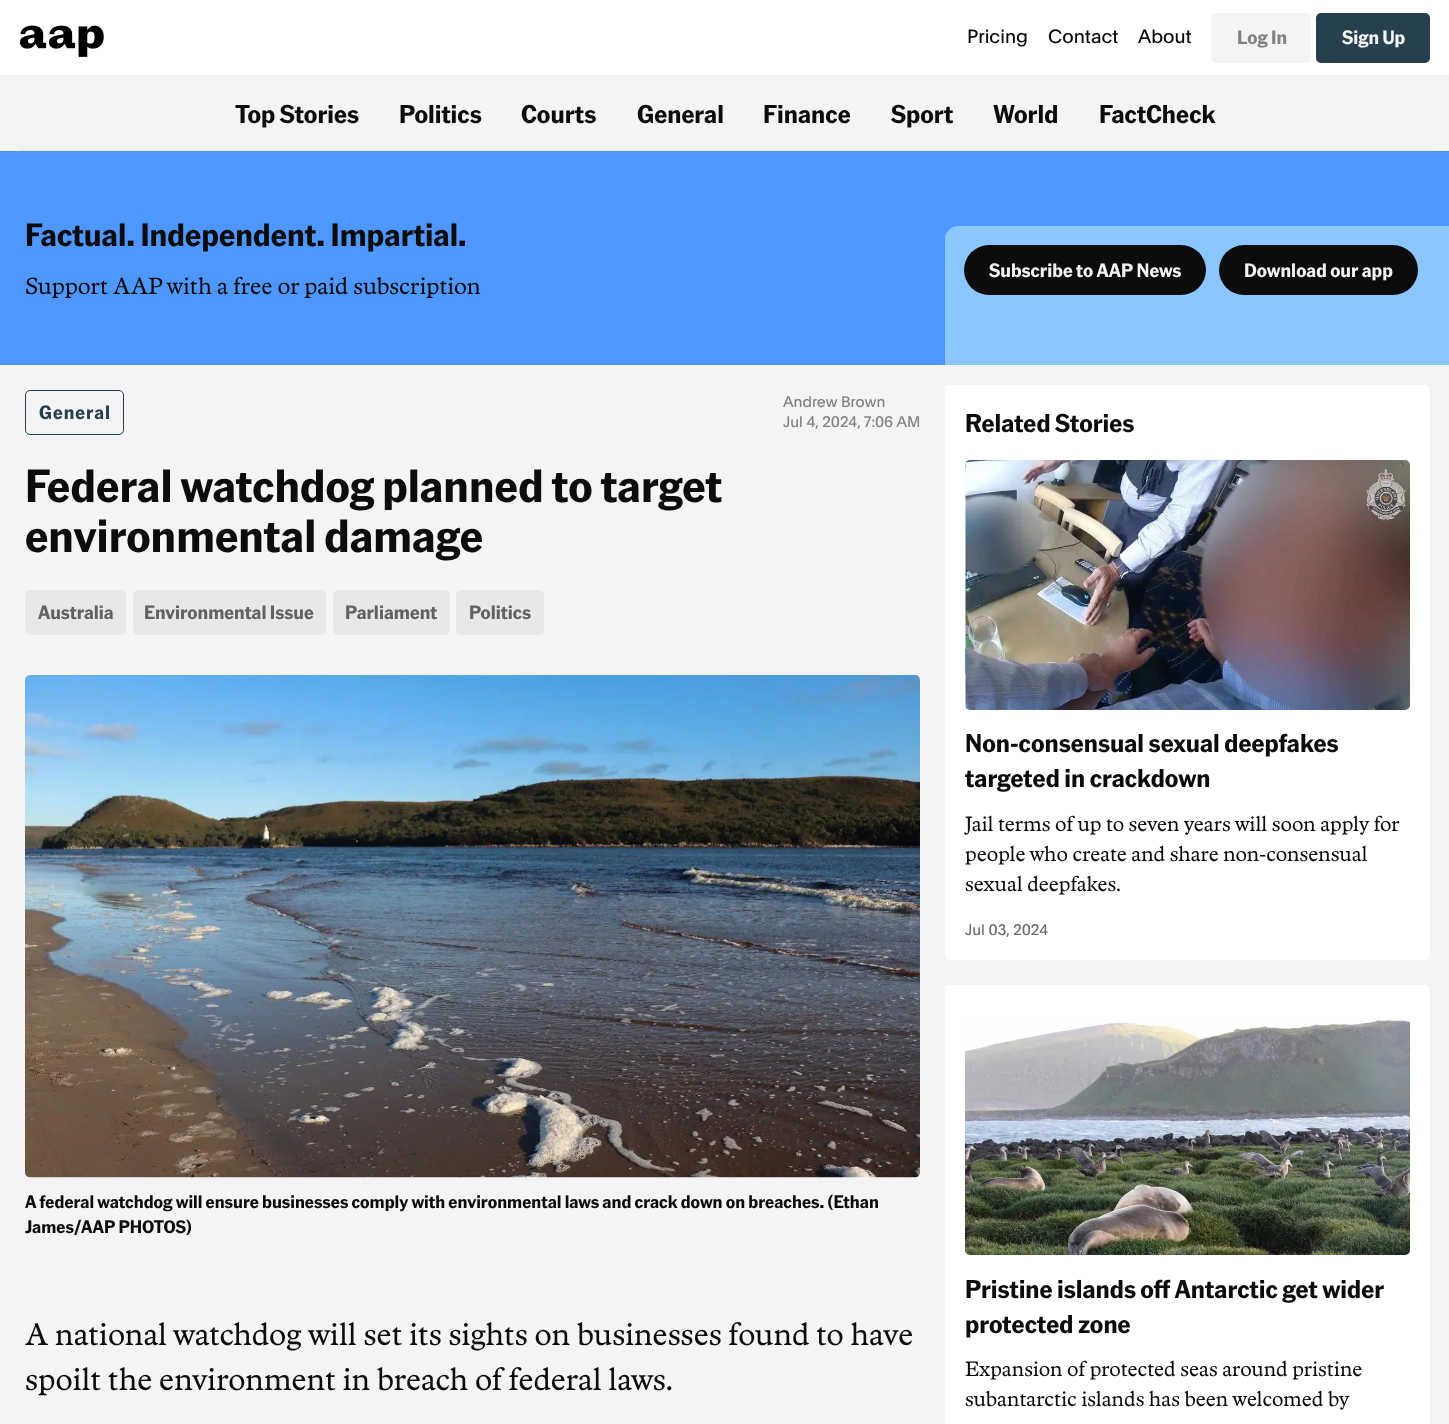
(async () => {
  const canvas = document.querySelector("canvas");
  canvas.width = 1449;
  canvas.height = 1424;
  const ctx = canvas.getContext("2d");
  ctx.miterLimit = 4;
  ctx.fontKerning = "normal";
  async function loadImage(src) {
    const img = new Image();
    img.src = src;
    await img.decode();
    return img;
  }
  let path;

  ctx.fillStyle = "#f4f4f7";
  ctx.fillRect(0, 0, 1449, 1424);
  ctx.fillStyle = "#ffffff";
  ctx.fillRect(0, 0, 1449, 75);
  ctx.drawImage(await loadImage("img/1.png"), 20, 25, 84, 32);
  ctx.fillStyle = "#f4f4f7";
  ctx.beginPath();
  ctx.roundRect(1211, 13, 100, 50, 5);
  ctx.fill();
  ctx.fillStyle = "#26404d";
  ctx.beginPath();
  ctx.roundRect(1316, 13, 114, 50, 5);
  ctx.fill();
  ctx.fillStyle = "#e8e8eb";
  ctx.fillRect(20, 150, 1410, 1);
  ctx.fillStyle = "#4d97ff";
  ctx.fillRect(0, 151, 1449, 214);
  ctx.fillStyle = "#8cc6ff";
  path = new Path2D("M958 226H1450V365H945V239C945 232 951 226 958 226Z");
  ctx.fill(path);
  ctx.fillStyle = "#0c0c0c";
  ctx.beginPath();
  ctx.roundRect(964, 245, 242, 50, 25);
  ctx.fill();
  ctx.beginPath();
  ctx.roundRect(1219, 245, 199, 50, 25);
  ctx.fill();
  ctx.beginPath();
  ctx.roundRect(25.5, 390.5, 98, 44, 4.5);
  ctx.strokeStyle = "#26404d";
  ctx.stroke();
  ctx.fillStyle = "#e8e8eb";
  ctx.beginPath();
  ctx.roundRect(25, 590, 101, 45, 5);
  ctx.fill();
  ctx.beginPath();
  ctx.roundRect(133, 590, 193, 45, 5);
  ctx.fill();
  ctx.beginPath();
  ctx.roundRect(333, 590, 117, 45, 5);
  ctx.fill();
  ctx.beginPath();
  ctx.roundRect(456, 590, 88, 45, 5);
  ctx.fill();
  ctx.drawImage(await loadImage("img/2.png"), 25, 675, 895, 503);
  ctx.fillStyle = "#ffffff";
  ctx.beginPath();
  ctx.roundRect(945, 385, 485, 575, 5);
  ctx.fill();
  ctx.drawImage(await loadImage("img/3.png"), 965, 460, 445, 250);
  ctx.beginPath();
  ctx.roundRect(945, 985, 485, 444, 5);
  ctx.fill();
  ctx.drawImage(await loadImage("img/4.png"), 965, 1018, 445, 237);
  ctx.font = "18.75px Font";
  ctx.fillStyle = "#0c0c0c";
  for (const [text, x, y] of [
    ["Pricing", 967, 43],
    ["Contact", 1048, 43],
    ["About", 1138, 43],
  ]) {
    ctx.fillText(text, x, y);
  }
  ctx.font = "bold 18.75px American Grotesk";
  ctx.fillStyle = "#818182";
  ctx.fillText("Log In", 1237, 44);
  ctx.fillStyle = "#f4f4f7";
  ctx.fillText("Sign Up", 1342, 44);
  ctx.font = "bold 25px American Grotesk";
  ctx.fillStyle = "#0c0c0c";
  for (const [text, x, y] of [
    ["Top Stories", 235, 123],
    ["Politics", 399, 123],
    ["Courts", 521, 123],
    ["General", 637, 123],
    ["Finance", 763, 123],
    ["Sport", 891, 123],
    ["World", 993, 123],
    ["FactCheck", 1099, 123],
  ]) {
    ctx.fillText(text, x, y);
  }
  ctx.font = "bold 31.25px American Grotesk";
  ctx.fillText("Factual. Independent. Impartial.", 25, 246);
  ctx.font = "22.5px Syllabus";
  ctx.fillText("Support AAP with a free or paid subscription", 25, 294);
  ctx.font = "bold 18.75px American Grotesk";
  ctx.fillStyle = "#f4f4f7";
  ctx.fillText("Subscribe to AAP News", 989, 277);
  ctx.fillText("Download our app", 1244, 277);
  ctx.letterSpacing = "1px";
  ctx.fillStyle = "#26404d";
  ctx.fillText("General", 39, 419);
  ctx.letterSpacing = "0px";
  ctx.font = "15px Font";
  ctx.fillStyle = "#818182";
  ctx.fillText("Andrew Brown", 783, 407);
  ctx.fillText("Jul 4, 2024, 7:06 AM", 783, 427);
  ctx.font = "bold 45px American Grotesk";
  ctx.fillStyle = "#0c0c0c";
  ctx.fillText("Federal watchdog planned to target", 25, 502);
  ctx.fillText("environmental damage", 25, 552);
  ctx.font = "bold 18.75px American Grotesk";
  ctx.fillStyle = "#626263";
  for (const [text, x, y] of [
    ["Australia", 38, 619],
    ["Environmental Issue", 144, 619],
    ["Parliament", 345, 619],
    ["Politics", 469, 619],
  ]) {
    ctx.fillText(text, x, y);
  }
  ctx.font = "bold 17.5px American Grotesk";
  ctx.fillStyle = "#0c0c0c";
  ctx.fillText("A federal watchdog will ensure businesses comply with environmental laws and crack down on breaches. (Ethan", 25, 1208);
  ctx.fillText("James/AAP PHOTOS)", 25, 1233);
  ctx.font = "30px Syllabus";
  ctx.fillText("A national watchdog will set its sights on businesses found to have", 25, 1345);
  ctx.fillText("spoilt the environment in breach of federal laws.", 25, 1390);
  ctx.font = "bold 25px American Grotesk";
  for (const [text, x, y] of [
    ["Related Stories", 965, 432],
    ["Non-consensual sexual deepfakes", 965, 752],
    ["targeted in crackdown", 965, 787],
  ]) {
    ctx.fillText(text, x, y);
  }
  ctx.font = "20px Syllabus";
  for (const [text, x, y] of [
    ["Jail terms of up to seven years will soon apply for", 965, 831],
    ["people who create and share non-consensual", 965, 861],
    ["sexual deepfakes.", 965, 891],
  ]) {
    ctx.fillText(text, x, y);
  }
  ctx.font = "15px Font";
  ctx.fillStyle = "#6d6d6d";
  ctx.fillText("Jul 03, 2024", 965, 935);
  ctx.font = "bold 25px American Grotesk";
  ctx.fillStyle = "#0c0c0c";
  ctx.fillText("Pristine islands off Antarctic get wider", 965, 1298);
  ctx.fillText("protected zone", 965, 1333);
  ctx.font = "20px Syllabus";
  ctx.fillText("Expansion of protected seas around pristine", 965, 1376);
  ctx.fillText("subantarctic islands has been welcomed by", 965, 1406);
})();
